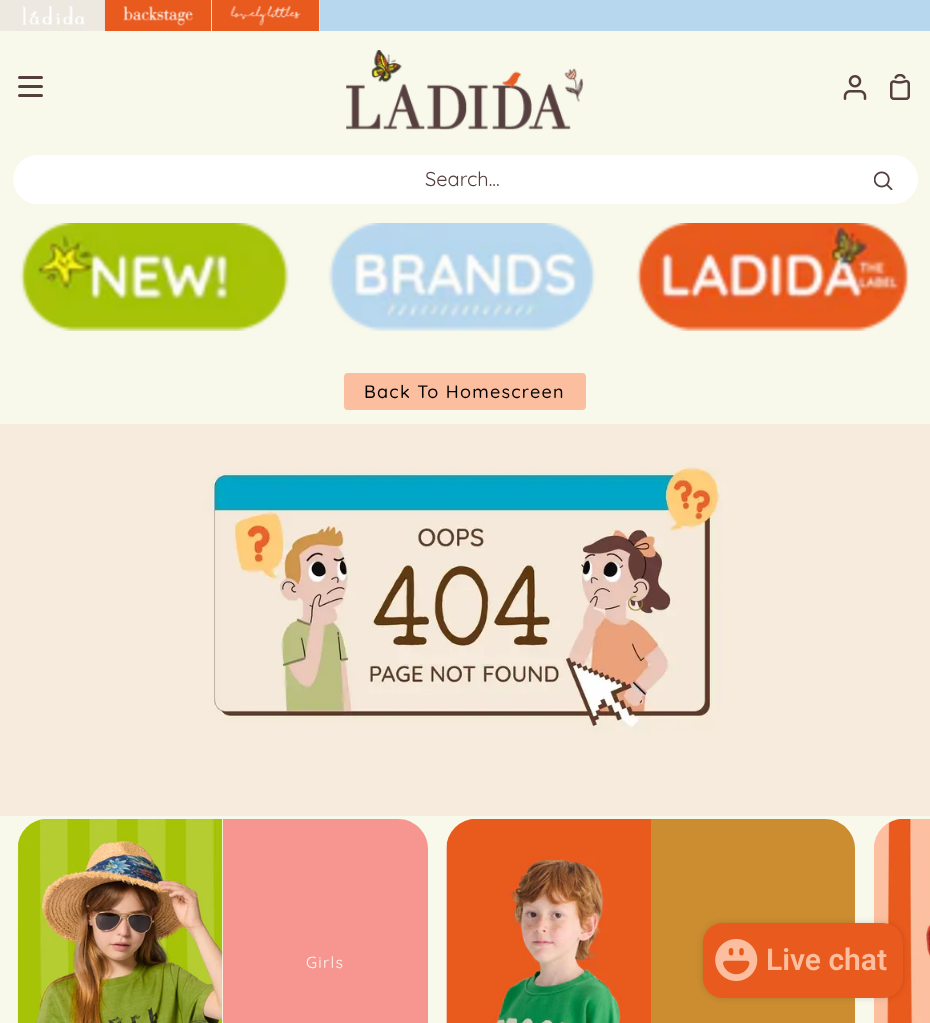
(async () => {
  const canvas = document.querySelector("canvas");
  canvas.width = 930;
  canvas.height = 1023;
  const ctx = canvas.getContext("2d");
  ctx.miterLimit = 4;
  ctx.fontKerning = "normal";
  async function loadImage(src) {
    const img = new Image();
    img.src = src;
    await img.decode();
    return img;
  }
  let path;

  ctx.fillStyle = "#f8f8eb";
  ctx.fillRect(0, 0, 930, 1023);
  for (const [x, y, w, h, color] of [
    [320, 0, 610, 31, "#b7d7ee"],
    [0, 0, 104, 31, "#ede9e1"],
    [104, 0, 1, 31, "#f0e2df"],
  ]) {
    ctx.fillStyle = color;
    ctx.fillRect(x, y, w, h);
  }
  ctx.drawImage(await loadImage("img/1.png"), 22, 6, 63, 20);
  ctx.fillStyle = "#e95a1e";
  ctx.fillRect(105, 0, 214, 31);
  ctx.fillStyle = "#f0e2df";
  ctx.fillRect(319, 0, 1, 31);
  ctx.drawImage(await loadImage("img/2.png"), 230, 6, 71, 20);
  ctx.fillRect(211, 0, 1, 31);
  ctx.drawImage(await loadImage("img/3.png"), 123, 6, 70, 20);
  ctx.fillStyle = "#553e3e";
  ctx.beginPath();
  ctx.roundRect(18, 76, 25, 3, 1.5);
  ctx.fill();
  ctx.beginPath();
  ctx.roundRect(18, 85, 25, 3, 1.5);
  ctx.fill();
  ctx.beginPath();
  ctx.roundRect(18, 94, 25, 3, 1.5);
  ctx.fill();
  ctx.drawImage(await loadImage("img/4.png"), 346, 50, 238, 80);
  ctx.drawImage(await loadImage("img/5.png"), 843, 75, 24, 25);
  ctx.drawImage(await loadImage("img/6.png"), 890, 74, 20, 26);
  ctx.fillStyle = "#ffffff";
  ctx.beginPath();
  ctx.roundRect(13, 155, 905, 49, 24.5);
  ctx.fill();
  ctx.drawImage(await loadImage("img/7.png"), 874, 171, 19, 19);
  ctx.drawImage(await loadImage("img/8.png"), 20, 223, 269, 108);
  ctx.drawImage(await loadImage("img/9.png"), 328, 223, 268, 108);
  ctx.drawImage(await loadImage("img/10.png"), 636, 223, 273, 108);
  ctx.fillStyle = "#fbbfa0";
  ctx.beginPath();
  ctx.roundRect(344, 373, 242, 37, 4);
  ctx.fill();
  ctx.drawImage(await loadImage("img/11.png"), 0, 424, 930, 392);
  ctx.drawImage(await loadImage("img/12.png"), 17, 819, 206, 204);
  ctx.fillStyle = "#f79590";
  path = new Path2D("M223 819H398C414.5 819 428 832.5 428 849V1023C428 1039.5 414.5 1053 398 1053H223Z");
  ctx.fill(path);
  ctx.drawImage(await loadImage("img/13.png"), 446, 819, 205, 204);
  ctx.fillStyle = "#cc8d31";
  path = new Path2D("M651 819H825C841.5 819 855 832.5 855 849V1023C855 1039.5 841.5 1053 825 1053H651Z");
  ctx.fill(path);
  ctx.drawImage(await loadImage("img/14.png"), 874, 819, 56, 204);
  ctx.fillStyle = "rgba(0, 0, 0, 0.15)";
  ctx.filter = "blur(3px)";
  ctx.beginPath();
  ctx.roundRect(703, 923, 200, 75, 20);
  ctx.fill();
  ctx.filter = "none";
  ctx.fillStyle = "#e95a1e";
  ctx.beginPath();
  ctx.roundRect(703, 923, 200, 75, 20);
  ctx.fill();
  ctx.drawImage(await loadImage("img/15.png"), 715, 939, 43, 42);
  ctx.font = "20px Quicksand";
  ctx.fillStyle = "#553e3e";
  ctx.fillText("Search...", 425, 186);
  ctx.letterSpacing = "1.25px";
  ctx.font = "500 18px Quicksand";
  ctx.fillStyle = "#000000";
  ctx.fillText("Back To Homescreen", 364, 398);
  ctx.font = "16px Quicksand";
  ctx.fillStyle = "#fbf9f0";
  ctx.fillText("Girls", 306, 968);
  ctx.letterSpacing = "0px";
  ctx.font = "600 30px Roboto";
  ctx.fillStyle = "#fbbfa0";
  ctx.fillText("Live chat", 766, 970);
})();
